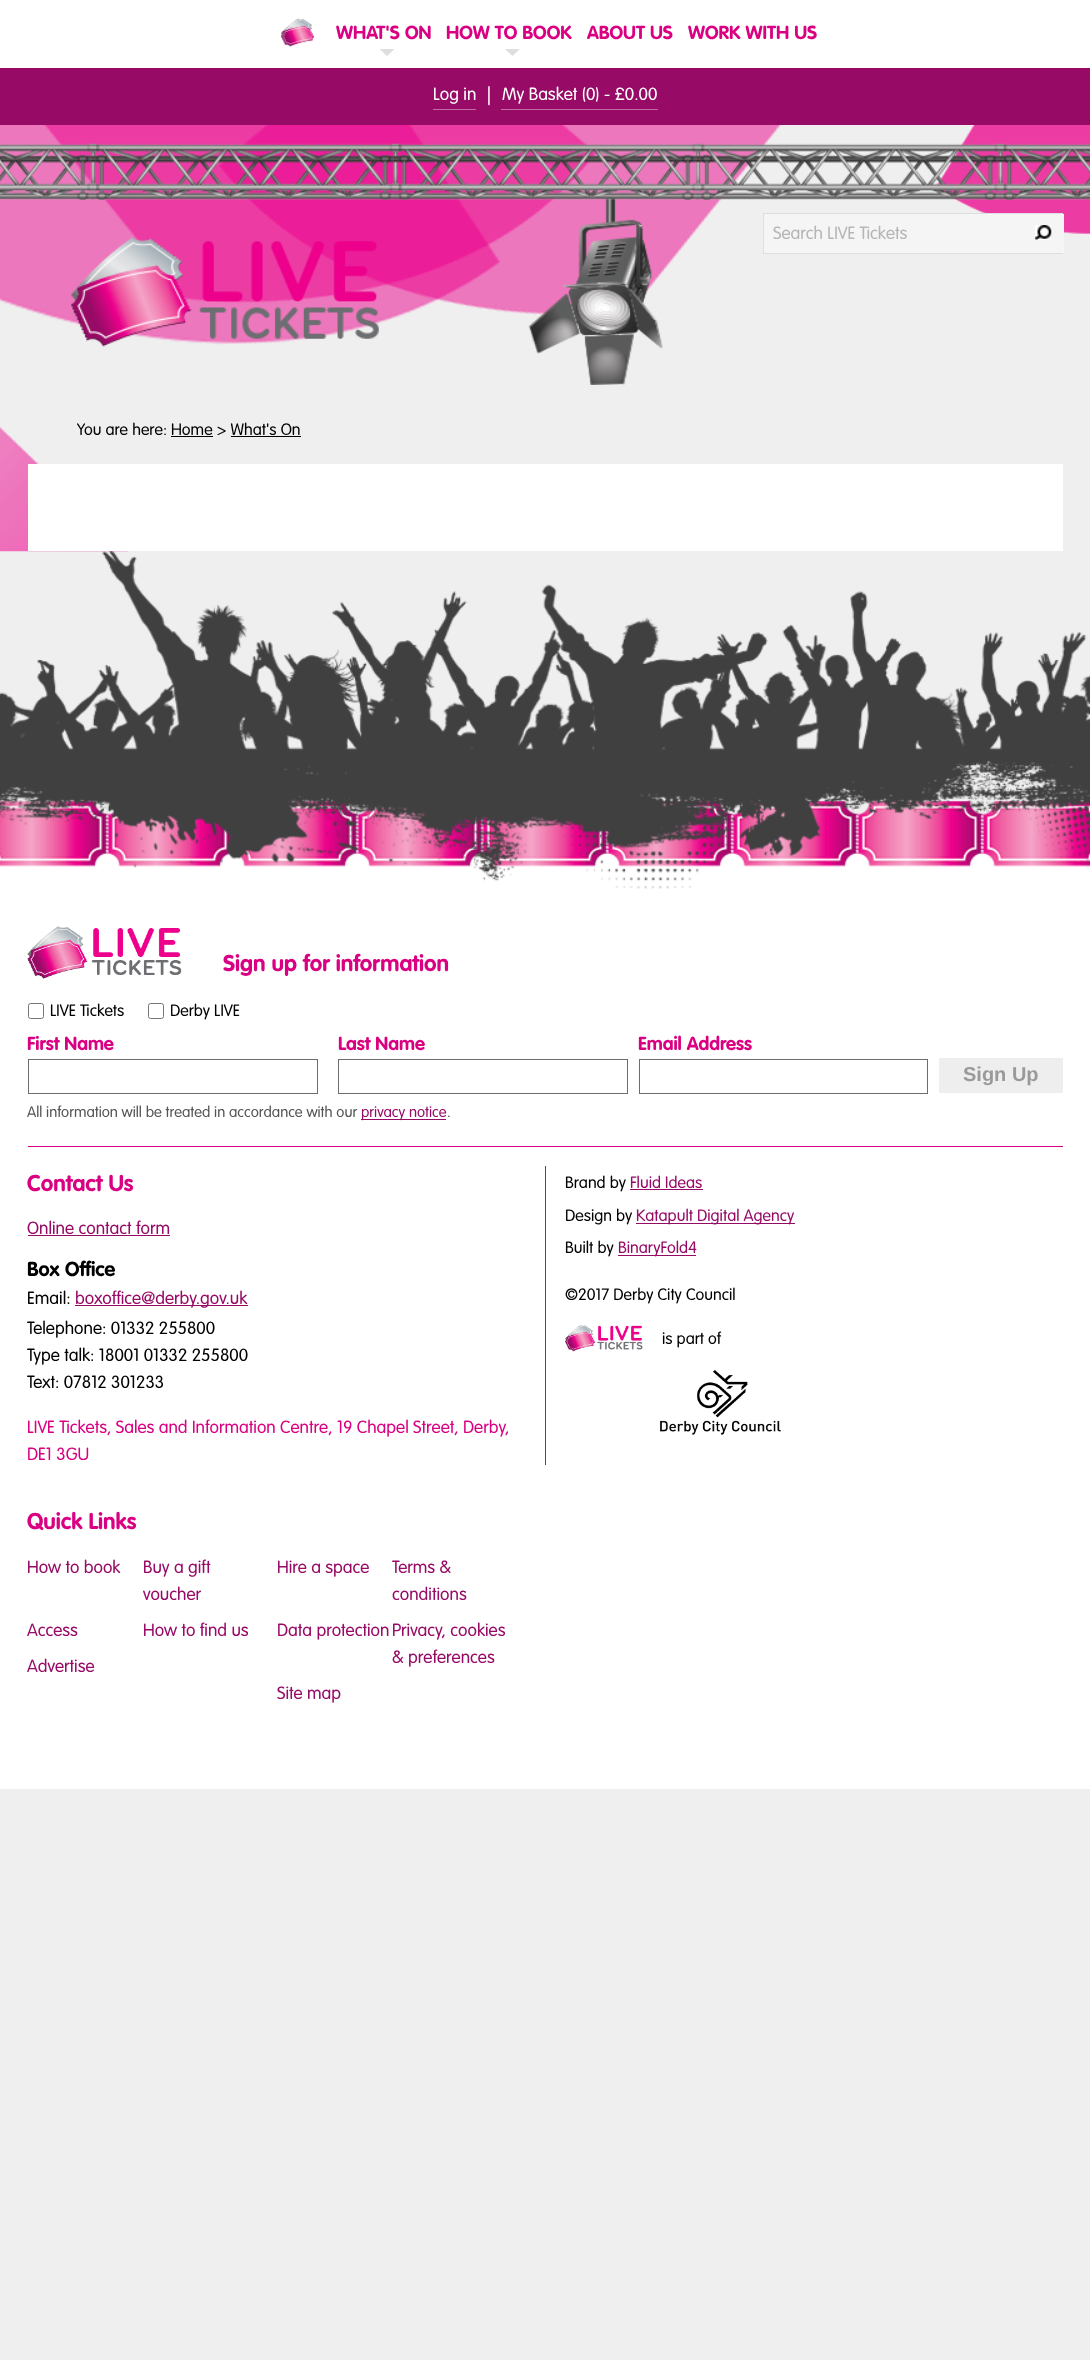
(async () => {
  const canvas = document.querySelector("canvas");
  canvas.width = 1090;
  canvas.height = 2360;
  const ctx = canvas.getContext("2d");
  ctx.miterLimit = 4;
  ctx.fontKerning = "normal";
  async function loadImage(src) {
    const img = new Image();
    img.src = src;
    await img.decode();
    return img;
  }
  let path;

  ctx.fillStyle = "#efefef";
  ctx.fillRect(0, 0, 1090, 2360);
  ctx.drawImage(await loadImage("img/1.png"), 0, 125, 1090, 427);
  ctx.fillStyle = "#ffffff";
  ctx.fillRect(0, 0, 1090, 68);
  ctx.drawImage(await loadImage("img/2.png"), 281, 18, 33, 29);
  ctx.fillStyle = "#dedede";
  path = new Path2D("M379.5 49H394.5L387 56Z");
  ctx.fill(path);
  path = new Path2D("M505 49H520L512.5 56Z");
  ctx.fill(path);
  for (const [x, y, w, h, color] of [
    [0, 68, 1090, 57, "#970b66"],
    [433, 109, 43, 1, "#c16da3"],
    [501, 109, 157, 1, "#c16da3"],
  ]) {
    ctx.fillStyle = color;
    ctx.fillRect(x, y, w, h);
  }
  ctx.drawImage(await loadImage("img/3.png"), 0, 143, 1090, 242);
  ctx.drawImage(await loadImage("img/4.png"), 71, 237, 308, 110);
  ctx.strokeStyle = "#dedede";
  ctx.strokeRect(763.5, 213.5, 299, 40);
  ctx.fillStyle = "#f5f5f5";
  ctx.fillRect(764, 214, 300, 39);
  ctx.drawImage(await loadImage("img/5.png"), 1035, 225, 17, 15);
  for (const [x, y, w, h, color] of [
    [171, 436, 42, 1, "#000000"],
    [231, 436, 70, 1, "#000000"],
    [28, 464, 1035, 87, "#ffffff"],
  ]) {
    ctx.fillStyle = color;
    ctx.fillRect(x, y, w, h);
  }
  ctx.drawImage(await loadImage("img/6.png"), 0, 551, 1090, 338);
  ctx.fillRect(0, 889, 1090, 900);
  ctx.fillStyle = "#da0082";
  ctx.fillRect(28, 1146, 1035, 1);
  ctx.drawImage(await loadImage("img/7.png"), 27, 926, 155, 53);
  ctx.beginPath();
  ctx.roundRect(28.5, 1003.5, 15, 15, 2);
  ctx.strokeStyle = "#767676";
  ctx.stroke();
  ctx.beginPath();
  ctx.roundRect(148.5, 1003.5, 15, 15, 2);
  ctx.stroke();
  ctx.strokeStyle = "#6d6d6d";
  ctx.strokeRect(28.5, 1059.5, 289, 34);
  ctx.strokeRect(338.5, 1059.5, 289, 34);
  ctx.strokeRect(639.5, 1059.5, 288, 34);
  for (const [x, y, w, h, color] of [
    [939, 1058, 124, 35, "#eeeeee"],
    [361, 1119, 85, 1, "#970b66"],
    [28, 1235, 142, 1, "#970b66"],
    [75, 1305, 173, 1, "#970b66"],
    [545, 1166, 1, 299, "#da0082"],
    [630, 1189, 73, 1, "#970b66"],
    [636, 1223, 159, 1, "#970b66"],
    [618, 1255, 78, 1, "#970b66"],
  ]) {
    ctx.fillStyle = color;
    ctx.fillRect(x, y, w, h);
  }
  ctx.drawImage(await loadImage("img/8.png"), 565, 1325, 78, 27);
  ctx.drawImage(await loadImage("img/9.png"), 660, 1369, 121, 66);
  ctx.font = "bold 18.75px 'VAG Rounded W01'";
  ctx.fillStyle = "#da0082";
  for (const [text, x, y] of [
    ["WHAT'S ON", 336, 39],
    ["HOW TO BOOK", 446, 39],
    ["ABOUT US", 587, 39],
    ["WORK WITH US", 688, 39],
  ]) {
    ctx.fillText(text, x, y);
  }
  ctx.font = "300 17.5px 'VAG Rounded W01'";
  ctx.fillStyle = "#ffffff";
  for (const [text, x, y] of [
    ["Log in", 433, 100],
    ["|", 487, 100],
    ["My Basket (0) - £0.00", 502, 100],
  ]) {
    ctx.fillText(text, x, y);
  }
  ctx.fillStyle = "#b6b6b6";
  ctx.fillText("Search LIVE Tickets", 773, 239);
  ctx.font = "300 16.25px 'VAG Rounded W01'";
  ctx.fillStyle = "#000000";
  ctx.fillText("You are here: Home > What's On", 77, 435);
  ctx.font = "bold 22.5px 'VAG Rounded W01'";
  ctx.fillStyle = "#da0082";
  ctx.fillText("Sign up for information", 223, 971);
  ctx.font = "300 16.25px 'VAG Rounded W01'";
  ctx.fillStyle = "#000000";
  ctx.fillText("LIVE Tickets", 50, 1016);
  ctx.fillText("Derby LIVE", 170, 1016);
  ctx.font = "bold 18.75px 'VAG Rounded W01'";
  ctx.fillStyle = "#da0082";
  for (const [text, x, y] of [
    ["First Name", 27, 1050],
    ["Last Name", 338, 1050],
    ["Email Address", 638, 1050],
  ]) {
    ctx.fillText(text, x, y);
  }
  ctx.font = "bold 20px Liberation Sans";
  ctx.fillStyle = "#999999";
  ctx.fillText("Sign Up", 963, 1081);
  ctx.font = "300 15px 'VAG Rounded W01'";
  ctx.fillStyle = "#555555";
  ctx.fillText("All information will be treated in accordance with our", 27, 1117);
  ctx.fillStyle = "#970b66";
  ctx.fillText("privacy notice", 361, 1117);
  ctx.fillStyle = "#555555";
  ctx.fillText(".", 447, 1117);
  ctx.font = "bold 22.5px 'VAG Rounded W01'";
  ctx.fillStyle = "#da0082";
  ctx.fillText("Contact Us", 27, 1191);
  ctx.font = "300 17.5px 'VAG Rounded W01'";
  ctx.fillStyle = "#970b66";
  ctx.fillText("Online contact form", 27, 1234);
  ctx.font = "bold 20px 'VAG Rounded W01'";
  ctx.fillStyle = "#000000";
  ctx.fillText("Box Office", 27, 1276);
  ctx.font = "300 17.5px 'VAG Rounded W01'";
  ctx.fillText("Email:", 27, 1304);
  ctx.fillStyle = "#970b66";
  ctx.fillText("boxoffice@derby.gov.uk", 75, 1304);
  ctx.fillStyle = "#000000";
  for (const [text, x, y] of [
    ["Telephone: 01332 255800", 27, 1334],
    ["Type talk: 18001 01332 255800", 27, 1361],
    ["Text: 07812 301233", 27, 1388],
  ]) {
    ctx.fillText(text, x, y);
  }
  ctx.fillStyle = "#da0082";
  ctx.fillText("LIVE Tickets, Sales and Information Centre, 19 Chapel Street, Derby,", 27, 1433);
  ctx.fillText("DE1 3GU", 27, 1460);
  ctx.font = "bold 22.5px 'VAG Rounded W01'";
  ctx.fillText("Quick Links", 27, 1529);
  ctx.font = "300 17.5px 'VAG Rounded W01'";
  ctx.fillStyle = "#970b66";
  for (const [text, x, y] of [
    ["How to book", 27, 1573],
    ["Buy a gift", 143, 1573],
    ["voucher", 143, 1600],
    ["Access", 27, 1636],
    ["How to find us", 143, 1636],
    ["Advertise", 27, 1672],
    ["Hire a space", 277, 1573],
    ["Terms &", 392, 1573],
    ["conditions", 392, 1600],
    ["Data protection", 277, 1636],
    ["Privacy, cookies", 392, 1636],
    ["& preferences", 392, 1663],
    ["Site map", 277, 1699],
  ]) {
    ctx.fillText(text, x, y);
  }
  ctx.font = "300 16.25px 'VAG Rounded W01'";
  ctx.fillStyle = "#000000";
  ctx.fillText("Brand by", 565, 1188);
  ctx.fillStyle = "#970b66";
  ctx.fillText("Fluid Ideas", 630, 1188);
  ctx.fillStyle = "#000000";
  ctx.fillText("Design by", 565, 1221);
  ctx.fillStyle = "#970b66";
  ctx.fillText("Katapult Digital Agency", 636, 1221);
  ctx.fillStyle = "#000000";
  ctx.fillText("Built by", 565, 1253);
  ctx.fillStyle = "#970b66";
  ctx.fillText("BinaryFold4", 618, 1253);
  ctx.fillStyle = "#000000";
  ctx.fillText("©2017 Derby City Council", 565, 1300);
  ctx.fillText("is part of", 662, 1344);
})();
